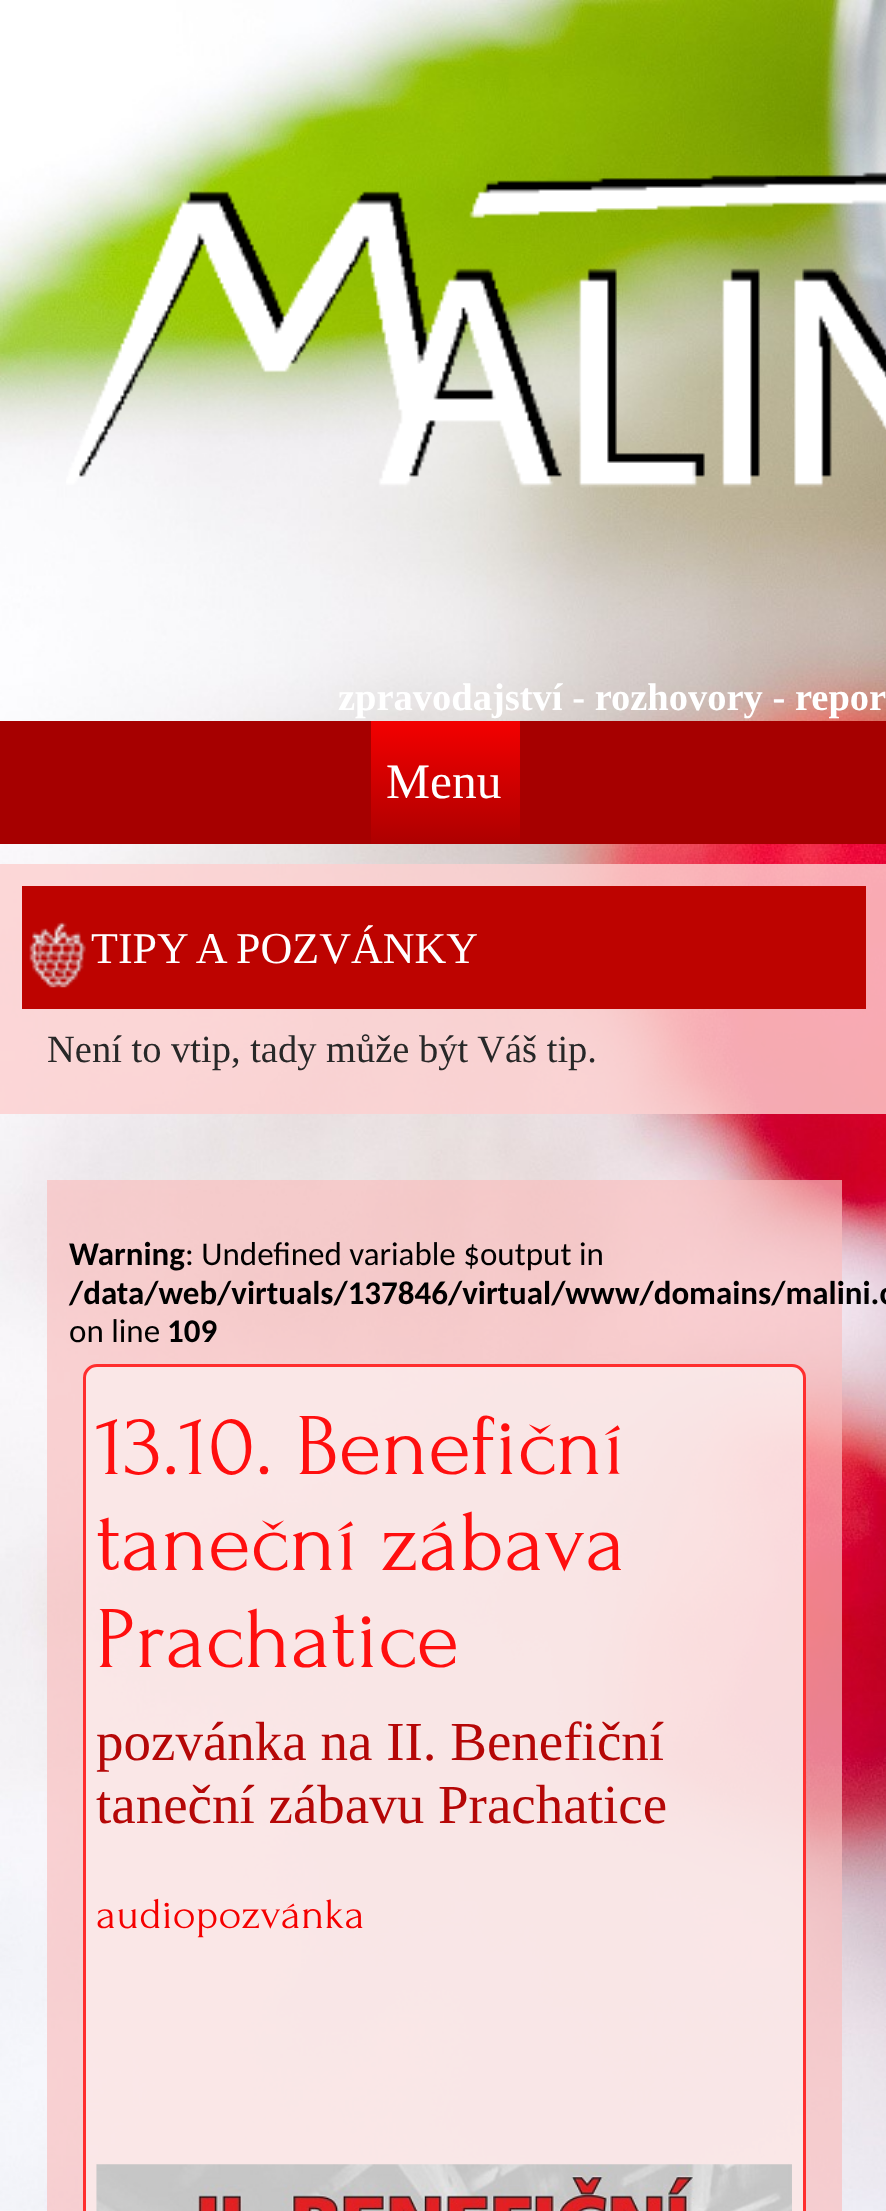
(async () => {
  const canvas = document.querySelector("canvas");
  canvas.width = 886;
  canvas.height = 2211;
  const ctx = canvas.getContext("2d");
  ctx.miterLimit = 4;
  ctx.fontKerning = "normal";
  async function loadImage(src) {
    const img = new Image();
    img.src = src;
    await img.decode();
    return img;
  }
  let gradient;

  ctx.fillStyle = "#ffffff";
  ctx.fillRect(0, 0, 886, 2211);
  ctx.drawImage(await loadImage("img/1.png"), 0, 0, 886, 2211);
  ctx.drawImage(await loadImage("img/2.png"), 66, 172, 820, 316);
  ctx.fillStyle = "#a60000";
  ctx.fillRect(0, 721, 886, 123);
  gradient = ctx.createLinearGradient(446, 721, 446, 844);
  gradient.addColorStop(0, "#f30000");
  gradient.addColorStop(1, "#ad0000");
  ctx.fillStyle = gradient;
  ctx.fillRect(371, 721, 149, 123);
  ctx.fillStyle = "rgba(252, 208, 208, 0.82)";
  ctx.fillRect(0, 864, 886, 250);
  ctx.fillStyle = "#bd0300";
  ctx.fillRect(22, 886, 844, 123);
  ctx.drawImage(await loadImage("img/3.png"), 29, 921, 57, 67);
  ctx.fillStyle = "rgba(249, 190, 190, 0.68)";
  ctx.fillRect(47, 1180, 795, 1031);
  ctx.fillStyle = "rgba(250, 236, 236, 0.83)";
  ctx.beginPath();
  ctx.roundRect(84.5, 1365.5, 720, 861, 12.5);
  ctx.fill();
  ctx.strokeStyle = "#ff2e2e";
  ctx.lineWidth = 3;
  ctx.stroke();
  ctx.drawImage(await loadImage("img/4.png"), 96, 2164, 696, 47);
  ctx.font = "bold 38.5px Liberation Serif";
  ctx.fillStyle = "#ffffff";
  ctx.fillText("zpravodajství - rozhovory - repor", 338, 710);
  ctx.font = "49.5px Liberation Serif";
  ctx.fillText("Menu", 386, 798);
  ctx.font = "44px Liberation Serif";
  ctx.fillText("TIPY A POZVÁNKY", 91, 963);
  ctx.font = "38.5px Liberation Serif";
  ctx.fillStyle = "#282828";
  ctx.fillText("Není to vtip, tady může být Váš tip.", 47, 1062);
  ctx.font = "bold 33px Carlito";
  ctx.fillStyle = "#000000";
  ctx.fillText("Warning", 69, 1265);
  ctx.font = "33px Carlito";
  ctx.fillText(": Undefined variable $output in", 185, 1265);
  ctx.font = "bold 33px Carlito";
  ctx.fillText("/data/web/virtuals/137846/virtual/www/domains/malini.c", 69, 1304);
  ctx.font = "33px Carlito";
  ctx.fillText("on line", 69, 1342);
  ctx.font = "bold 33px Carlito";
  ctx.fillText("109", 167, 1342);
  ctx.font = "88px Forum";
  ctx.fillStyle = "#ff0f0f";
  for (const [text, x, y] of [
    ["13.10. Benefiční", 96, 1474],
    ["taneční zábava", 96, 1570],
    ["Prachatice", 96, 1667],
  ]) {
    ctx.fillText(text, x, y);
  }
  ctx.font = "55px Liberation Serif";
  ctx.fillStyle = "#b50707";
  ctx.fillText("pozvánka na II. Benefiční", 96, 1760);
  ctx.fillText("taneční zábavu Prachatice", 96, 1823);
  ctx.font = "44px Forum";
  ctx.fillStyle = "#f50000";
  ctx.fillText("audiopozvánka", 96, 1928);
})();
